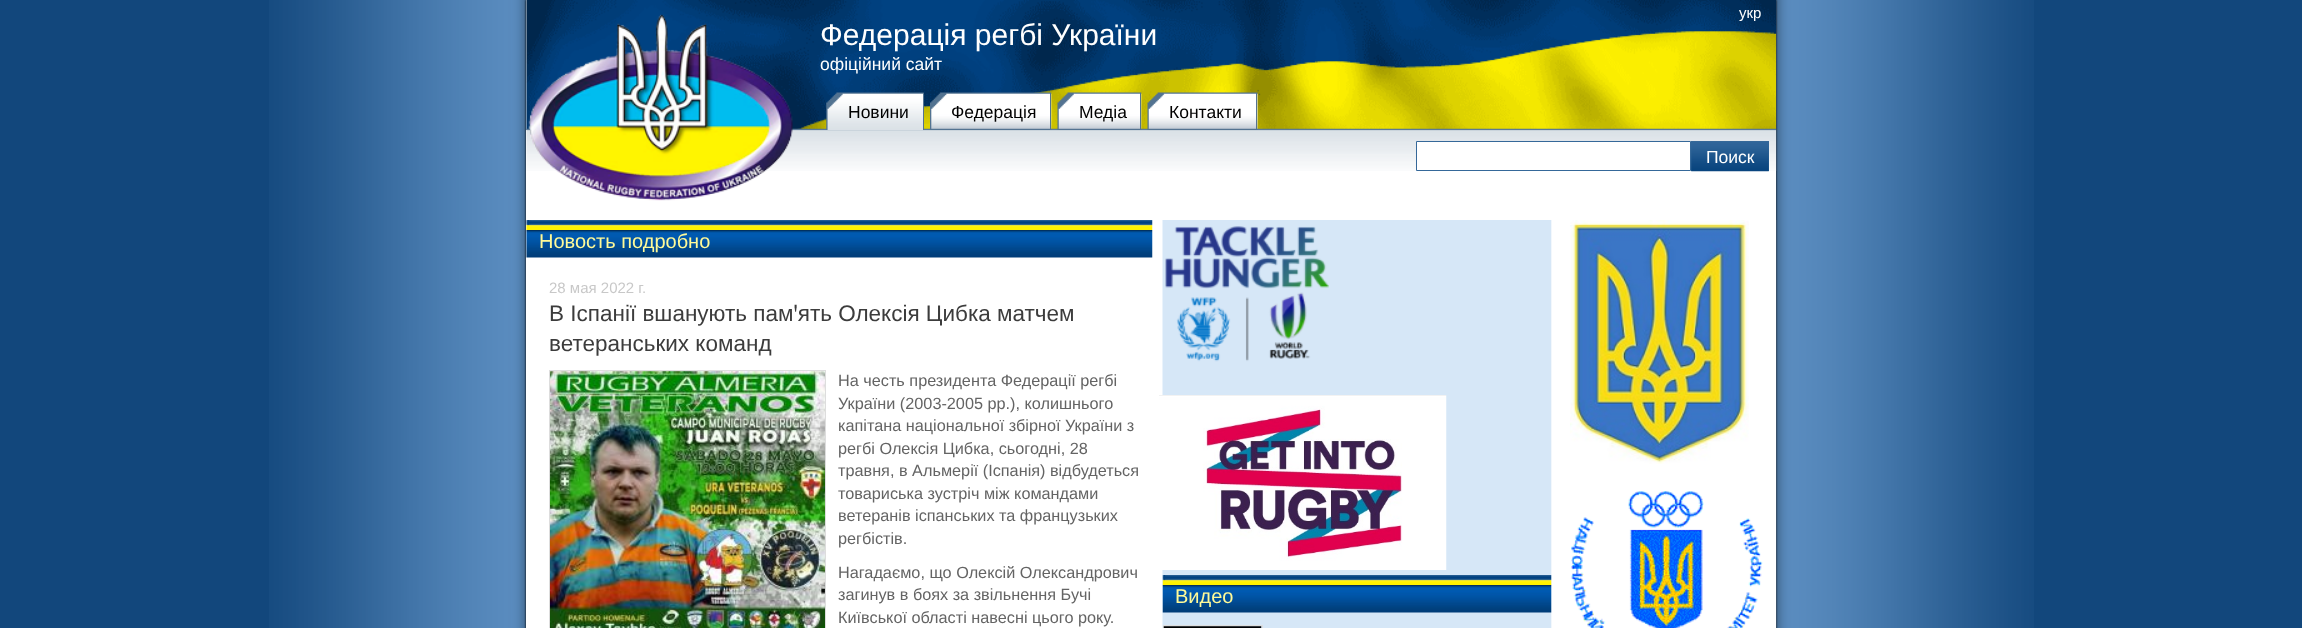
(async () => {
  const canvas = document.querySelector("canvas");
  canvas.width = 2302;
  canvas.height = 628;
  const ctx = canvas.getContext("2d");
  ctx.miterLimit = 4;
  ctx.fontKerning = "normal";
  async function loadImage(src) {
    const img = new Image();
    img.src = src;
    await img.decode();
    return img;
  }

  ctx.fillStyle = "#12477c";
  ctx.fillRect(0, 0, 2302, 628);
  ctx.drawImage(await loadImage("img/1.png"), 269, 0, 1765, 628);
  ctx.fillStyle = "#000000";
  ctx.filter = "blur(1px)";
  ctx.beginPath();
  ctx.rect(526, 0, 1250, 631);
  ctx.fill();
  ctx.filter = "none";
  ctx.fillStyle = "#ffffff";
  ctx.fillRect(526, 0, 1250, 628);
  ctx.drawImage(await loadImage("img/3.png"), 526, 0, 1251, 130);
  ctx.drawImage(await loadImage("img/8.png"), 526, 128, 1251, 43);
  ctx.drawImage(await loadImage("img/2.png"), 528, 14, 265, 187);
  ctx.drawImage(await loadImage("img/4.png"), 826, 92, 98, 38);
  ctx.fillStyle = "#537391";
  ctx.fillRect(923, 93, 1, 37);
  ctx.drawImage(await loadImage("img/5.png"), 930, 92, 122, 38);
  ctx.fillRect(1050, 93, 1, 37);
  ctx.drawImage(await loadImage("img/6.png"), 1057, 92, 85, 38);
  ctx.fillRect(1140, 93, 1, 37);
  ctx.drawImage(await loadImage("img/7.png"), 1147, 92, 111, 38);
  ctx.fillRect(1256, 93, 1, 37);
  ctx.fillStyle = "#ffffff";
  ctx.beginPath();
  ctx.rect(1416.5, 141.5, 274, 29);
  ctx.fill();
  ctx.strokeStyle = "#356899";
  ctx.stroke();
  ctx.fillStyle = "#356899";
  ctx.fillRect(1691, 141, 78, 30);
  ctx.drawImage(await loadImage("img/9.png"), 1691, 142, 78, 30);
  ctx.drawImage(await loadImage("img/10.png"), 1162, 220, 615, 408);
  ctx.drawImage(await loadImage("img/11.png"), 526, 220, 627, 10);
  ctx.drawImage(await loadImage("img/12.png"), 526, 230, 627, 28);
  ctx.strokeStyle = "#dddddd";
  ctx.strokeRect(549.5, 370.5, 276, 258);
  ctx.drawImage(await loadImage("img/13.png"), 550, 371, 275, 257);
  ctx.drawImage(await loadImage("img/14.png"), 1165, 226, 164, 136);
  ctx.drawImage(await loadImage("img/15.png"), 1159, 395, 288, 175);
  ctx.drawImage(await loadImage("img/16.png"), 1162, 575, 390, 10);
  ctx.drawImage(await loadImage("img/17.png"), 1162, 585, 390, 28);
  ctx.strokeRect(1163.5, 625.5, 99, 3);
  ctx.drawImage(await loadImage("img/18.png"), 1163, 626, 99, 2);
  ctx.drawImage(await loadImage("img/19.png"), 1570, 220, 179, 244);
  ctx.drawImage(await loadImage("img/20.png"), 1571, 491, 192, 137);
  ctx.font = "15px Liberation Sans";
  ctx.fillStyle = "#ffffff";
  ctx.fillText("укр", 1739, 18);
  ctx.font = "30px Liberation Sans";
  ctx.fillText("Федерація регбі України", 820, 45);
  ctx.font = "17.5px Liberation Sans";
  ctx.fillText("офіційний сайт", 820, 70);
  ctx.fillStyle = "#000000";
  for (const [text, x, y] of [
    ["Новини", 848, 118],
    ["Федерацiя", 951, 118],
    ["Медіа", 1079, 118],
    ["Контакти", 1169, 118],
  ]) {
    ctx.fillText(text, x, y);
  }
  ctx.fillStyle = "#ffffff";
  ctx.fillText("Поиск", 1706, 163);
  ctx.font = "20px Liberation Sans";
  ctx.fillStyle = "#fffa98";
  ctx.fillText("Новость подробно", 539, 248);
  ctx.font = "15px Liberation Sans";
  ctx.fillStyle = "#c8c8c8";
  ctx.fillText("28 мая 2022 г.", 549, 293);
  ctx.font = "22.5px Liberation Sans";
  ctx.fillStyle = "#3c3c3c";
  ctx.fillText("В Іспанії вшанують памꞌять Олексія Цибка матчем", 549, 321);
  ctx.fillText("ветеранських команд", 549, 351);
  ctx.font = "16.25px Liberation Sans";
  ctx.fillStyle = "#646464";
  for (const [text, x, y] of [
    ["На честь президента Федерації регбі", 838, 386],
    ["України (2003-2005 рр.), колишнього", 838, 409],
    ["капітана національної збірної України з", 838, 431],
    ["регбі Олексія Цибка, сьогодні, 28", 838, 454],
    ["травня, в Альмерії (Іспанія) відбудеться", 838, 476],
    ["товариська зустріч між командами", 838, 499],
    ["ветеранів іспанських та французьких", 838, 521],
    ["регбістів.", 838, 544],
    ["Нагадаємо, що Олексій Олександрович", 838, 578],
    ["загинув в боях за звільнення Бучі", 838, 600],
    ["Київської області навесні цього року.", 838, 623],
  ]) {
    ctx.fillText(text, x, y);
  }
  ctx.font = "20px Liberation Sans";
  ctx.fillStyle = "#fffa98";
  ctx.fillText("Видео", 1175, 603);
})();
